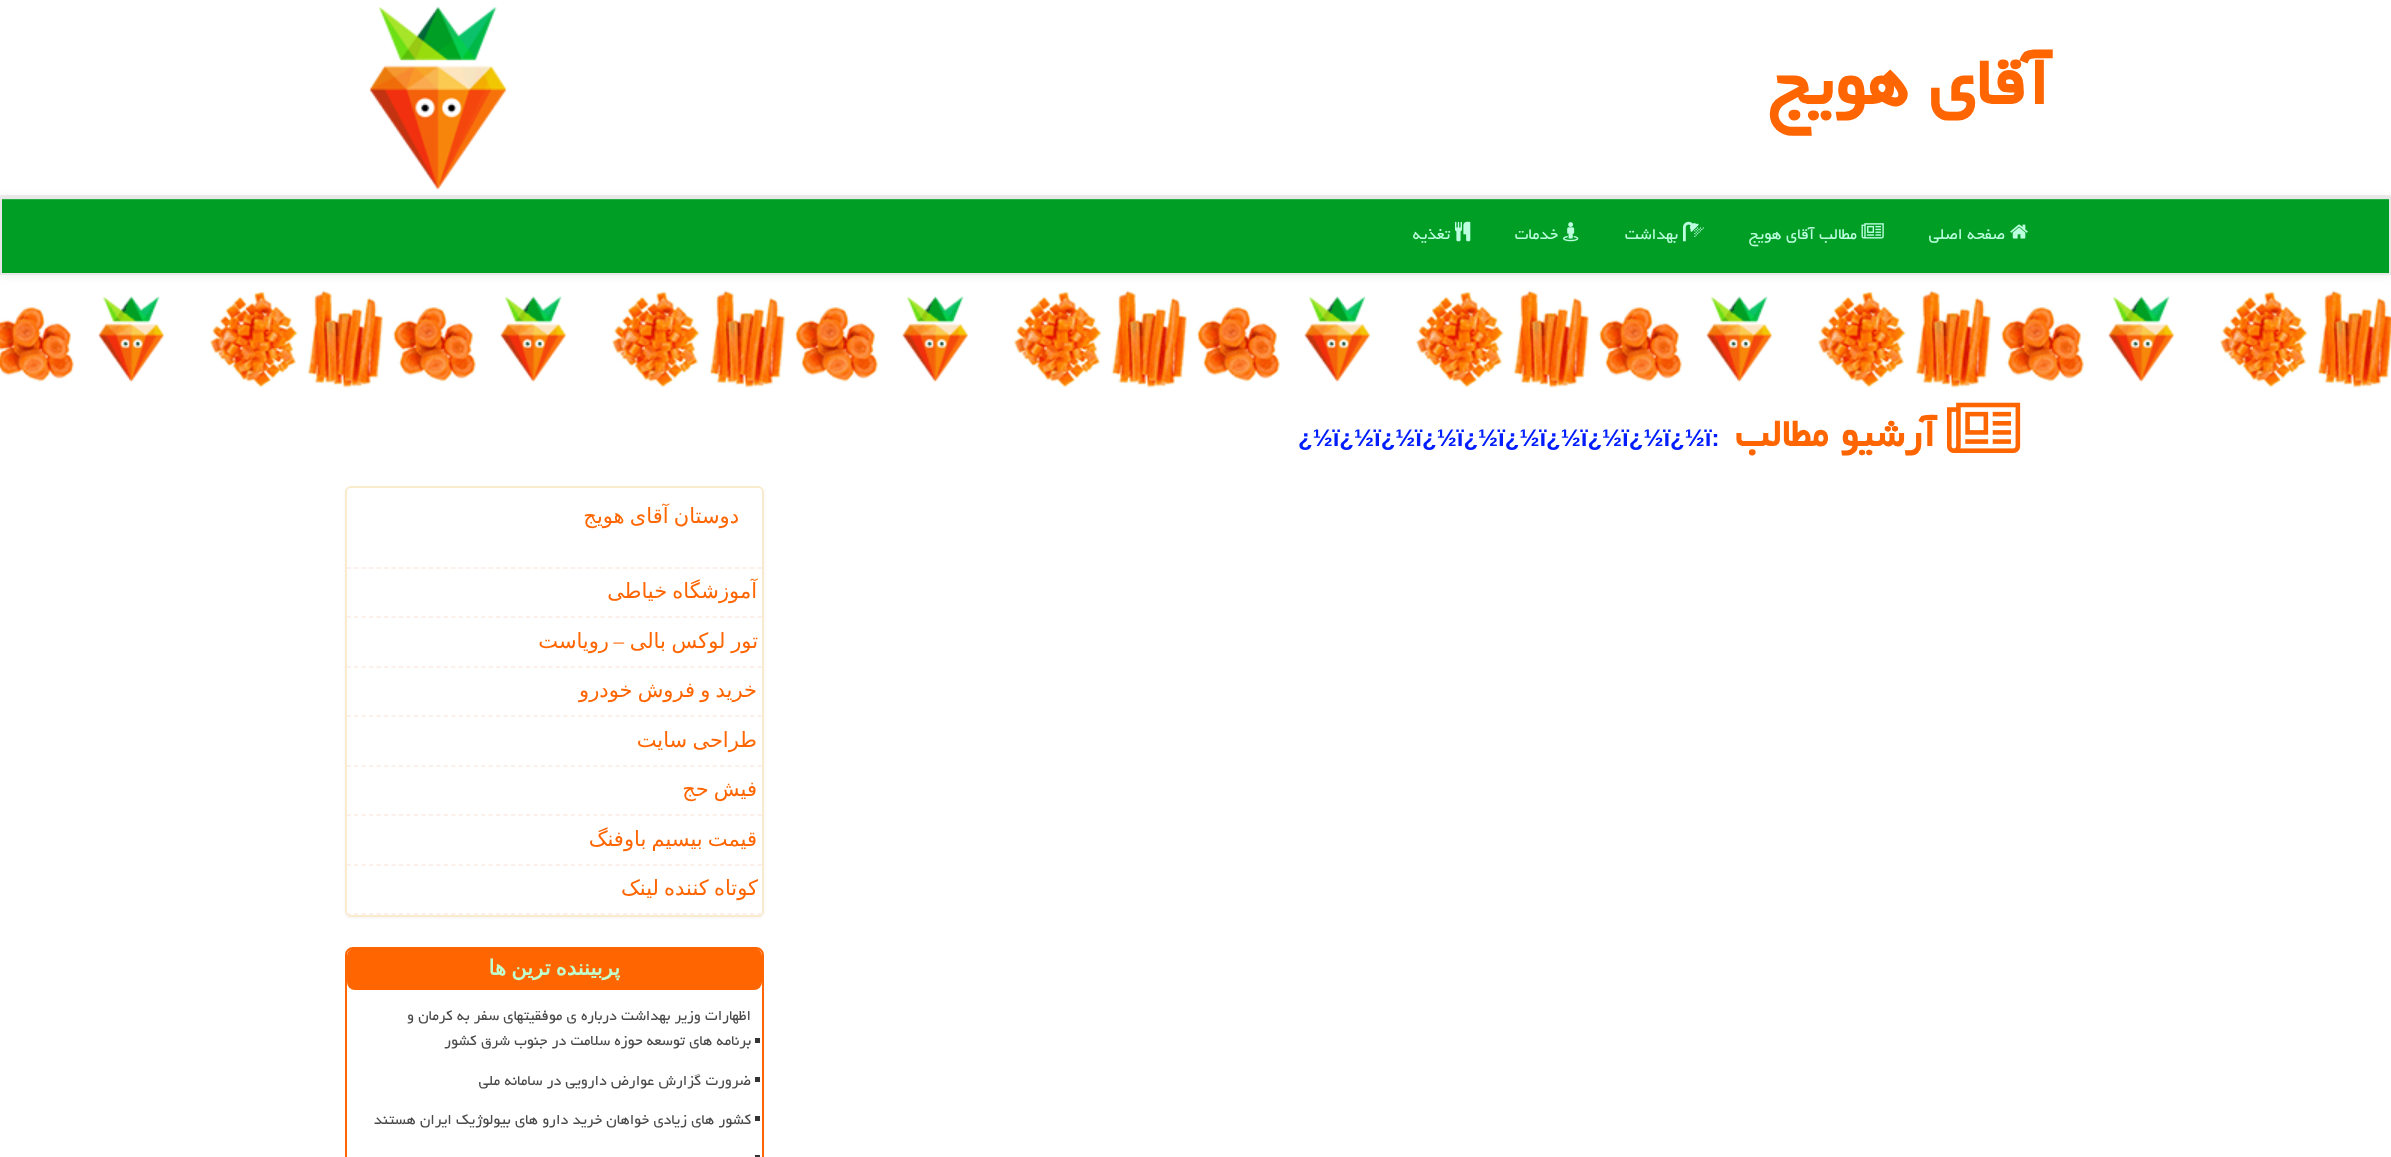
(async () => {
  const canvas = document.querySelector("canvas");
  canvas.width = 2391;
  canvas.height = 1157;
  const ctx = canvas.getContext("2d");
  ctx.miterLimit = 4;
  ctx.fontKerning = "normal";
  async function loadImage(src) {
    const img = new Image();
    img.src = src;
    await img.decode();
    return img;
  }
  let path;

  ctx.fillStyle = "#ffffff";
  ctx.fillRect(0, 0, 2391, 1157);
  ctx.fillStyle = "#eeeeee";
  ctx.fillRect(0, 195, 2391, 2);
  ctx.drawImage(await loadImage("img/1.png"), 369, 7, 138, 183);
  ctx.fillStyle = "rgba(0, 0, 0, 0.07)";
  ctx.filter = "blur(4px)";
  ctx.beginPath();
  ctx.rect(0, 198, 2391, 78);
  ctx.fill();
  ctx.filter = "none";
  ctx.fillStyle = "#009e25";
  ctx.fillRect(2, 200, 2387, 73);
  ctx.fillStyle = "#26ad46";
  ctx.fillRect(2, 199, 2388, 1);
  ctx.strokeStyle = "#e7e7e7";
  ctx.lineWidth = 2;
  ctx.strokeRect(1, 198, 2389, 76);
  ctx.drawImage(await loadImage("img/2.png"), 2010, 224, 18, 15);
  ctx.drawImage(await loadImage("img/3.png"), 1861, 223, 23, 16);
  ctx.drawImage(await loadImage("img/4.png"), 1683, 221, 21, 21);
  ctx.drawImage(await loadImage("img/5.png"), 1563, 222, 16, 20);
  ctx.drawImage(await loadImage("img/6.png"), 1455, 221, 16, 21);
  ctx.drawImage(await loadImage("img/7.png"), 0, 290, 2391, 98);
  ctx.drawImage(await loadImage("img/8.png"), 1947, 402, 74, 51);
  ctx.fillStyle = "rgba(0, 0, 0, 0.05)";
  ctx.filter = "blur(1.5px)";
  ctx.beginPath();
  ctx.roundRect(345, 488, 419, 430, 6);
  ctx.fill();
  ctx.filter = "none";
  ctx.fillStyle = "#ffffff";
  ctx.beginPath();
  ctx.roundRect(346, 487, 417, 429, 5);
  ctx.fill();
  ctx.strokeStyle = "#faebcc";
  ctx.stroke();
  path = new Path2D("M346.5 568H762");
  ctx.strokeStyle = "#fcede4";
  ctx.lineWidth = 1.5;
  ctx.setLineDash([4.5, 2.97]);
  ctx.stroke(path);
  path = new Path2D("M346.5 617H762");
  ctx.stroke(path);
  path = new Path2D("M346.5 667H762");
  ctx.stroke(path);
  path = new Path2D("M346.5 716H762");
  ctx.stroke(path);
  path = new Path2D("M346.5 766H762");
  ctx.stroke(path);
  path = new Path2D("M346.5 815H762");
  ctx.stroke(path);
  path = new Path2D("M346.5 865H762");
  ctx.stroke(path);
  path = new Path2D("M346.5 914H762");
  ctx.stroke(path);
  ctx.beginPath();
  ctx.roundRect(346, 948, 417, 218, 7);
  ctx.strokeStyle = "#ff6500";
  ctx.lineWidth = 2;
  ctx.setLineDash([]);
  ctx.stroke();
  ctx.fillStyle = "#ff6500";
  ctx.beginPath();
  ctx.roundRect(347, 948, 415, 42, 8);
  ctx.fill();
  for (const [x, y, w, h, color] of [
    [755, 1038, 5, 5, "#333333"],
    [755, 1077, 5, 5, "#333333"],
    [755, 1116, 5, 5, "#333333"],
    [755, 1155, 5, 2, "#333333"],
  ]) {
    ctx.fillStyle = color;
    ctx.fillRect(x, y, w, h);
  }
  ctx.direction = "rtl";
  ctx.font = "bold 84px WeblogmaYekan";
  ctx.fillStyle = "#ff6500";
  ctx.fillText("آقای هویج", 2050, 104);
  ctx.font = "19.5px WeblogmaYekan";
  ctx.fillStyle = "#bcffdf";
  for (const [text, x, y] of [
    ["صفحه اصلی", 2005, 239],
    ["مطالب آقای هویج", 1857, 239],
    ["بهداشت", 1678, 239],
    ["خدمات", 1558, 239],
    ["تغذیه", 1450, 239],
  ]) {
    ctx.fillText(text, x, y);
  }
  ctx.font = "bold 48px WeblogmaYekan";
  ctx.fillStyle = "#ff6500";
  ctx.fillText("آرشیو مطالب", 1936, 446);
  ctx.direction = "ltr";
  ctx.font = "bold 24px Liberation Sans";
  ctx.fillStyle = "#001dff";
  ctx.fillText("¿½ï¿½ï¿½ï¿½ï¿½ï¿½ï¿½ï¿½ï¿½ï¿½ï:", 1298, 446);
  ctx.wordSpacing = "-1.5px";
  ctx.direction = "rtl";
  ctx.font = "21px DejaVu Sans";
  ctx.fillStyle = "#ff6500";
  ctx.fillText("دوستان آقای هویج", 739, 523);
  ctx.fillText("آموزشگاه خیاطی", 757, 598);
  ctx.wordSpacing = "-1px";
  ctx.fillText("تور لوکس بالی", 758, 648);
  ctx.wordSpacing = "0px";
  ctx.font = "21px Liberation Serif";
  ctx.fillText("–", 624, 648);
  ctx.font = "21px DejaVu Sans";
  ctx.fillText("رویاست", 609, 648);
  ctx.wordSpacing = "-1.5px";
  for (const [text, x, y] of [
    ["خرید و فروش خودرو", 757, 697],
    ["طراحی سایت", 757, 747],
    ["فیش حج", 757, 796],
    ["قیمت بیسیم باوفنگ", 757, 846],
    ["کوتاه کننده لینک", 758, 895],
  ]) {
    ctx.fillText(text, x, y);
  }
  ctx.font = "bold 21px DejaVu Sans";
  ctx.fillStyle = "#c1ffcc";
  ctx.fillText("پربیننده ترین ها", 620, 975);
  ctx.wordSpacing = "0px";
  ctx.font = "18px WeblogmaYekan";
  ctx.fillStyle = "#4a4a4a";
  for (const [text, x, y] of [
    ["اظهارات وزیر بهداشت درباره ی موفقیتهای سفر به کرمان و", 751, 1020],
    ["برنامه های توسعه حوزه سلامت در جنوب شرق کشور", 751, 1045],
    ["ضرورت گزارش عوارض دارویی در سامانه ملی", 751, 1085],
    ["کشور های زیادی خواهان خرید دارو های بیولوژیک ایران هستند", 751, 1124],
  ]) {
    ctx.fillText(text, x, y);
  }
})();
